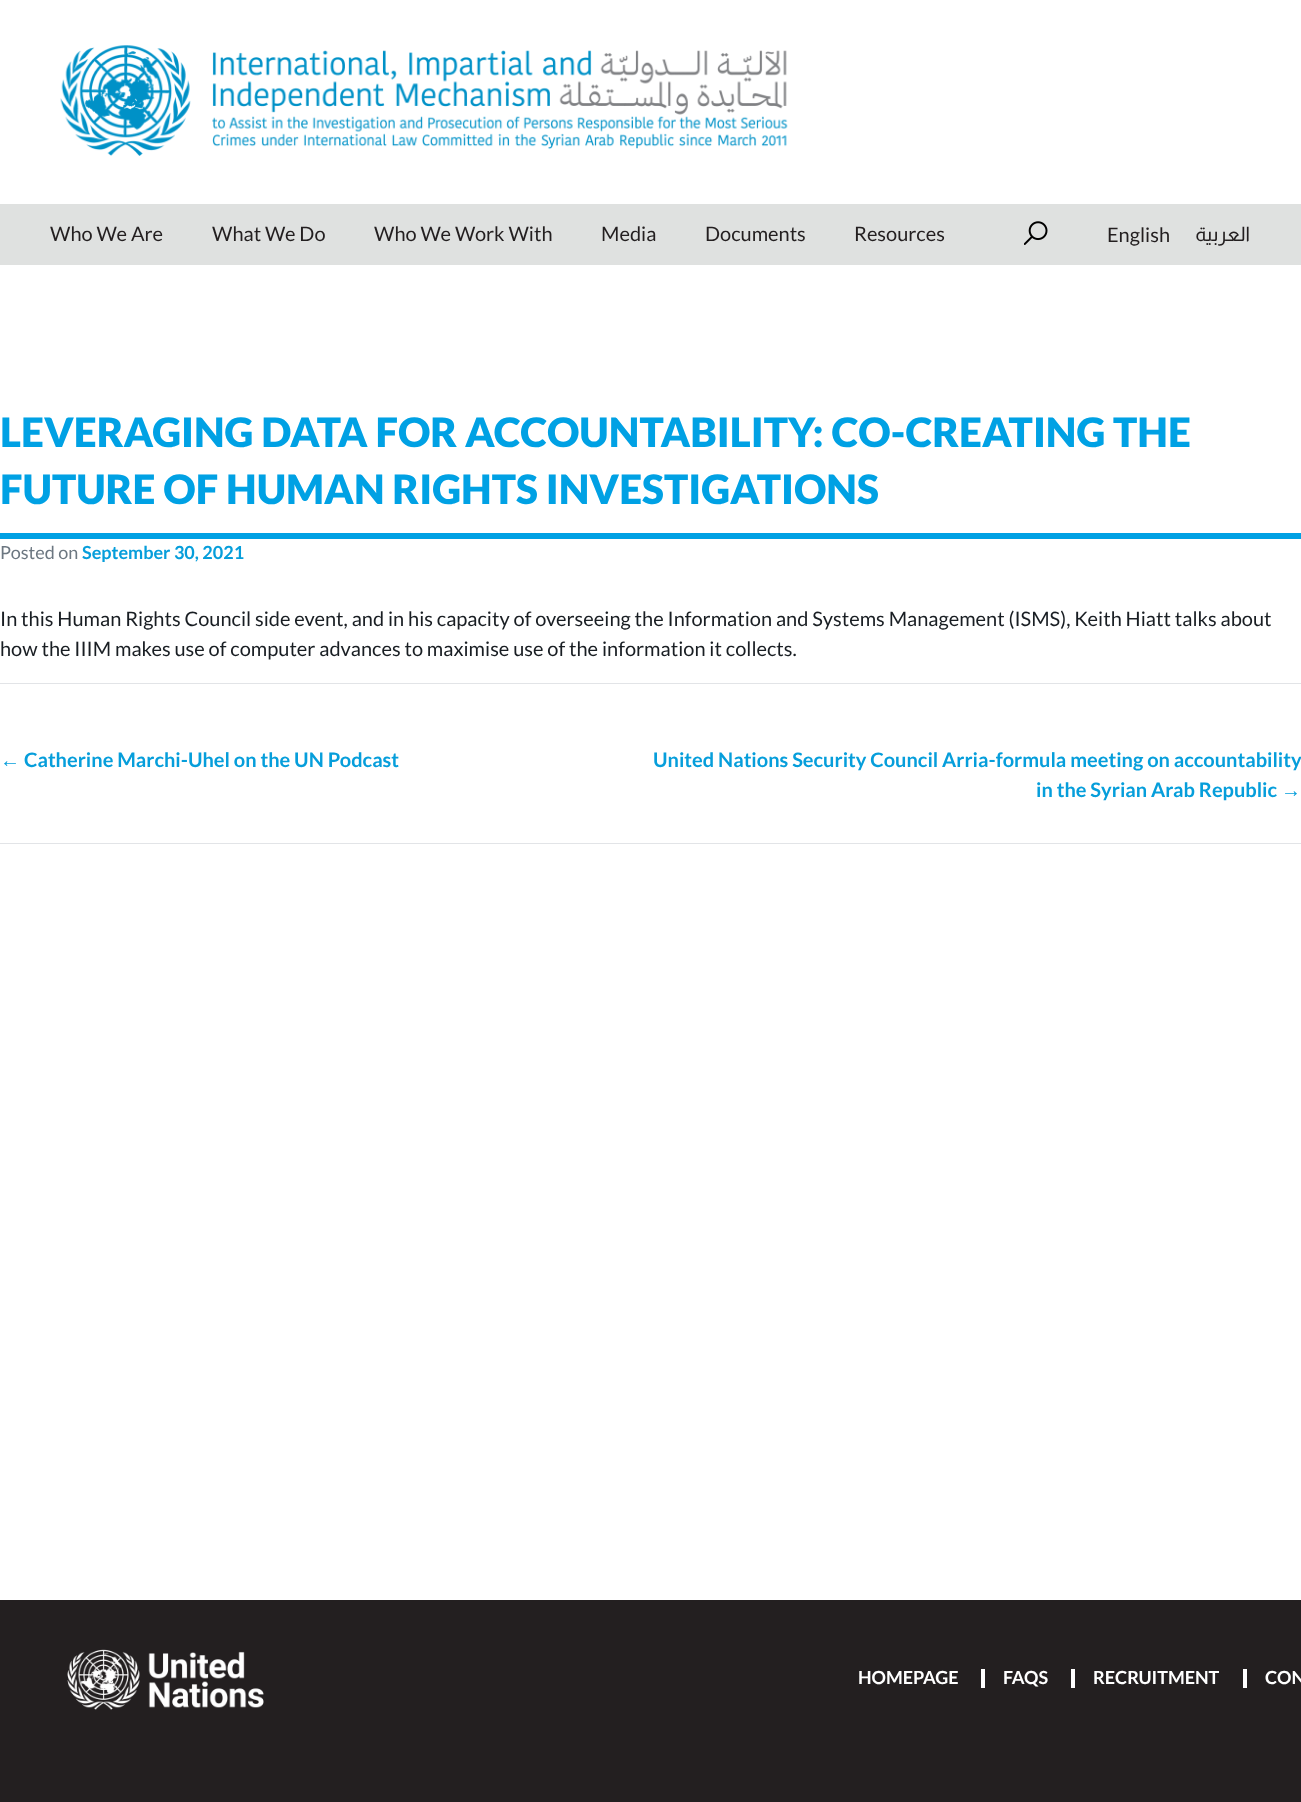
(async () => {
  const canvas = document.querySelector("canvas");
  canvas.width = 1301;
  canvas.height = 1802;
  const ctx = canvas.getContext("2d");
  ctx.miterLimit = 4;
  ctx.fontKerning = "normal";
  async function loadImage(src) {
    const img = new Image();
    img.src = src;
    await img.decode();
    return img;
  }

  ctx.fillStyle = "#ffffff";
  ctx.fillRect(0, 0, 1301, 1802);
  ctx.drawImage(await loadImage("img/1.png"), 60, 45, 728, 111);
  ctx.fillStyle = "#dfe1e0";
  ctx.fillRect(0, 204, 1301, 61);
  ctx.drawImage(await loadImage("img/2.png"), 1024, 221, 24, 24);
  for (const [x, y, w, h, color] of [
    [0, 533, 1301, 6, "#00a1e4"],
    [0, 683, 1301, 1, "#e2e4e7"],
    [0, 843, 1301, 1, "#e2e4e7"],
    [0, 1600, 1301, 202, "#231f20"],
  ]) {
    ctx.fillStyle = color;
    ctx.fillRect(x, y, w, h);
  }
  ctx.drawImage(await loadImage("img/3.png"), 67, 1649, 197, 61);
  for (const [x, y, w, h, color] of [
    [981, 1669, 4, 19, "#ffffff"],
    [1071, 1669, 4, 19, "#ffffff"],
    [1243, 1669, 4, 19, "#ffffff"],
  ]) {
    ctx.fillStyle = color;
    ctx.fillRect(x, y, w, h);
  }
  ctx.font = "20px Lato";
  ctx.fillStyle = "#231f20";
  for (const [text, x, y] of [
    ["Who We Are", 50, 241],
    ["What We Do", 212, 241],
    ["Who We Work With", 374, 241],
    ["Media", 601, 241],
    ["Documents", 705, 241],
    ["Resources", 854, 241],
    ["English", 1107, 242],
  ]) {
    ctx.fillText(text, x, y);
  }
  ctx.direction = "rtl";
  ctx.font = "20px Almarai";
  ctx.fillText("العربية", 1250, 241);
  ctx.direction = "ltr";
  ctx.font = "900 40.5px Lato";
  ctx.fillStyle = "#00a1e4";
  ctx.fillText("LEVERAGING DATA FOR ACCOUNTABILITY: CO-CREATING THE", 0, 447);
  ctx.fillText("FUTURE OF HUMAN RIGHTS INVESTIGATIONS", 0, 504);
  ctx.font = "18px Lato";
  ctx.fillStyle = "#6c7781";
  ctx.fillText("Posted on", 0, 559);
  ctx.font = "bold 18px Lato";
  ctx.fillStyle = "#069edb";
  ctx.fillText("September 30, 2021", 82, 559);
  ctx.font = "20px Lato";
  ctx.fillStyle = "#191e23";
  ctx.fillText("In this Human Rights Council side event, and in his capacity of overseeing the Information and Systems Management (ISMS), Keith Hiatt talks about", 0, 626);
  ctx.fillText("how the IIIM makes use of computer advances to maximise use of the information it collects.", 0, 656);
  ctx.font = "bold 20px Liberation Sans";
  ctx.fillStyle = "#069edb";
  ctx.fillText("←", 0, 767);
  ctx.font = "bold 20px Lato";
  for (const [text, x, y] of [
    ["Catherine Marchi-Uhel on the UN Podcast", 24, 767],
    ["United Nations Security Council Arria-formula meeting on accountability", 653, 767],
    ["in the Syrian Arab Republic", 1036, 797],
  ]) {
    ctx.fillText(text, x, y);
  }
  ctx.font = "bold 20px Liberation Sans";
  ctx.fillText("→", 1281, 797);
  ctx.font = "bold 18px Lato";
  ctx.fillStyle = "#ffffff";
  for (const [text, x, y] of [
    ["HOMEPAGE", 858, 1684],
    ["FAQS", 1003, 1684],
    ["RECRUITMENT", 1093, 1684],
    ["CON", 1265, 1684],
  ]) {
    ctx.fillText(text, x, y);
  }
})();
